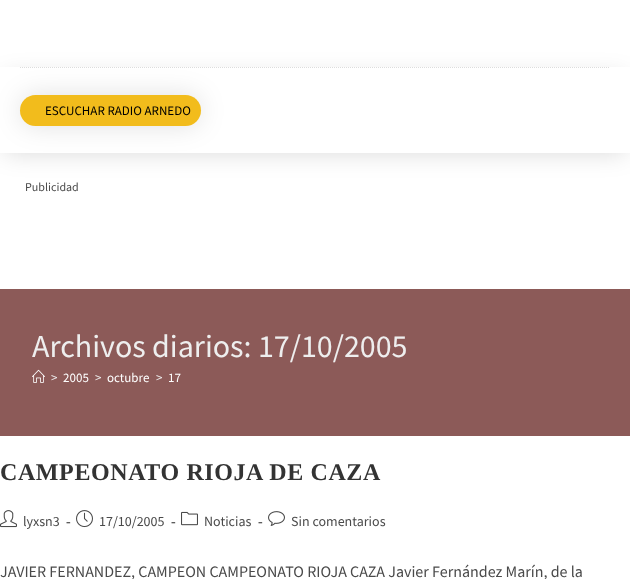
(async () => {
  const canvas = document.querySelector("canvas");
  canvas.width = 630;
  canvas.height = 579;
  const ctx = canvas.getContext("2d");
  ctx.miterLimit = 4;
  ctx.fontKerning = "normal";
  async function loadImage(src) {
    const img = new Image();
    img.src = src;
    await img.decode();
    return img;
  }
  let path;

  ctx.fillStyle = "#ffffff";
  ctx.fillRect(0, 0, 630, 579);
  ctx.fillStyle = "rgba(0, 0, 0, 0.15)";
  ctx.filter = "blur(12px)";
  ctx.beginPath();
  ctx.rect(5, 77, 620, 76);
  ctx.fill();
  ctx.filter = "none";
  ctx.fillStyle = "#ffffff";
  ctx.fillRect(0, 67, 630, 86);
  path = new Path2D("M20 67.5H610");
  ctx.strokeStyle = "#dddddd";
  ctx.setLineDash([1, 1]);
  ctx.stroke(path);
  ctx.fillStyle = "rgba(0, 0, 0, 0.12)";
  ctx.filter = "blur(13.5px)";
  ctx.beginPath();
  ctx.roundRect(20, 95, 181, 31, 15.5);
  ctx.fill();
  ctx.filter = "none";
  ctx.fillStyle = "#f2bc1c";
  ctx.beginPath();
  ctx.roundRect(20, 95, 181, 31, 15.5);
  ctx.fill();
  ctx.fillStyle = "#8c5a58";
  ctx.fillRect(0, 289, 630, 147);
  ctx.drawImage(await loadImage("img/1.png"), 32, 369, 13, 14);
  ctx.drawImage(await loadImage("img/2.png"), 0, 510, 17, 18);
  ctx.drawImage(await loadImage("img/3.png"), 76, 510, 17, 18);
  ctx.drawImage(await loadImage("img/4.png"), 181, 511, 17, 15);
  ctx.drawImage(await loadImage("img/5.png"), 268, 511, 17, 15);
  ctx.font = "13px Source Sans Pro";
  ctx.fillStyle = "#000000";
  ctx.fillText("ESCUCHAR RADIO ARNEDO", 45, 115);
  ctx.font = "12px Source Sans Pro";
  ctx.fillStyle = "#4a4a4a";
  ctx.fillText("Publicidad", 25, 191);
  ctx.font = "32px Source Sans Pro";
  ctx.fillStyle = "#eeeeee";
  ctx.fillText("Archivos diarios: 17/10/2005", 32, 357);
  ctx.font = "13px Source Sans Pro";
  ctx.fillText(">", 51, 382);
  ctx.fillStyle = "#ffffff";
  ctx.fillText("2005", 63, 382);
  ctx.fillStyle = "#eeeeee";
  ctx.fillText(">", 95, 382);
  ctx.fillStyle = "#ffffff";
  ctx.fillText("octubre", 107, 382);
  ctx.fillStyle = "#eeeeee";
  ctx.fillText(">", 156, 382);
  ctx.fillStyle = "#ffffff";
  ctx.fillText("17", 168, 382);
  ctx.letterSpacing = "0.6px";
  ctx.font = "bold 24px Liberation Serif";
  ctx.fillStyle = "#333333";
  ctx.fillText("CAMPEONATO RIOJA DE CAZA", 0, 480);
  ctx.letterSpacing = "0px";
  ctx.font = "14px Source Sans Pro";
  ctx.fillStyle = "#4a4a4a";
  ctx.fillText("lyxsn3", 23, 526);
  ctx.font = "bold 14px Liberation Serif";
  ctx.fillText("-", 66, 526);
  ctx.font = "14px Source Sans Pro";
  ctx.fillText("17/10/2005", 99, 526);
  ctx.font = "bold 14px Liberation Serif";
  ctx.fillText("-", 171, 526);
  ctx.font = "14px Source Sans Pro";
  ctx.fillText("Noticias", 204, 526);
  ctx.font = "bold 14px Liberation Serif";
  ctx.fillText("-", 258, 526);
  ctx.font = "14px Source Sans Pro";
  ctx.fillText("Sin comentarios", 291, 526);
  ctx.font = "16px Source Sans Pro";
  ctx.fillText("JAVIER FERNANDEZ, CAMPEON CAMPEONATO RIOJA CAZA Javier Fernández Marín, de la", 0, 577);
})();
